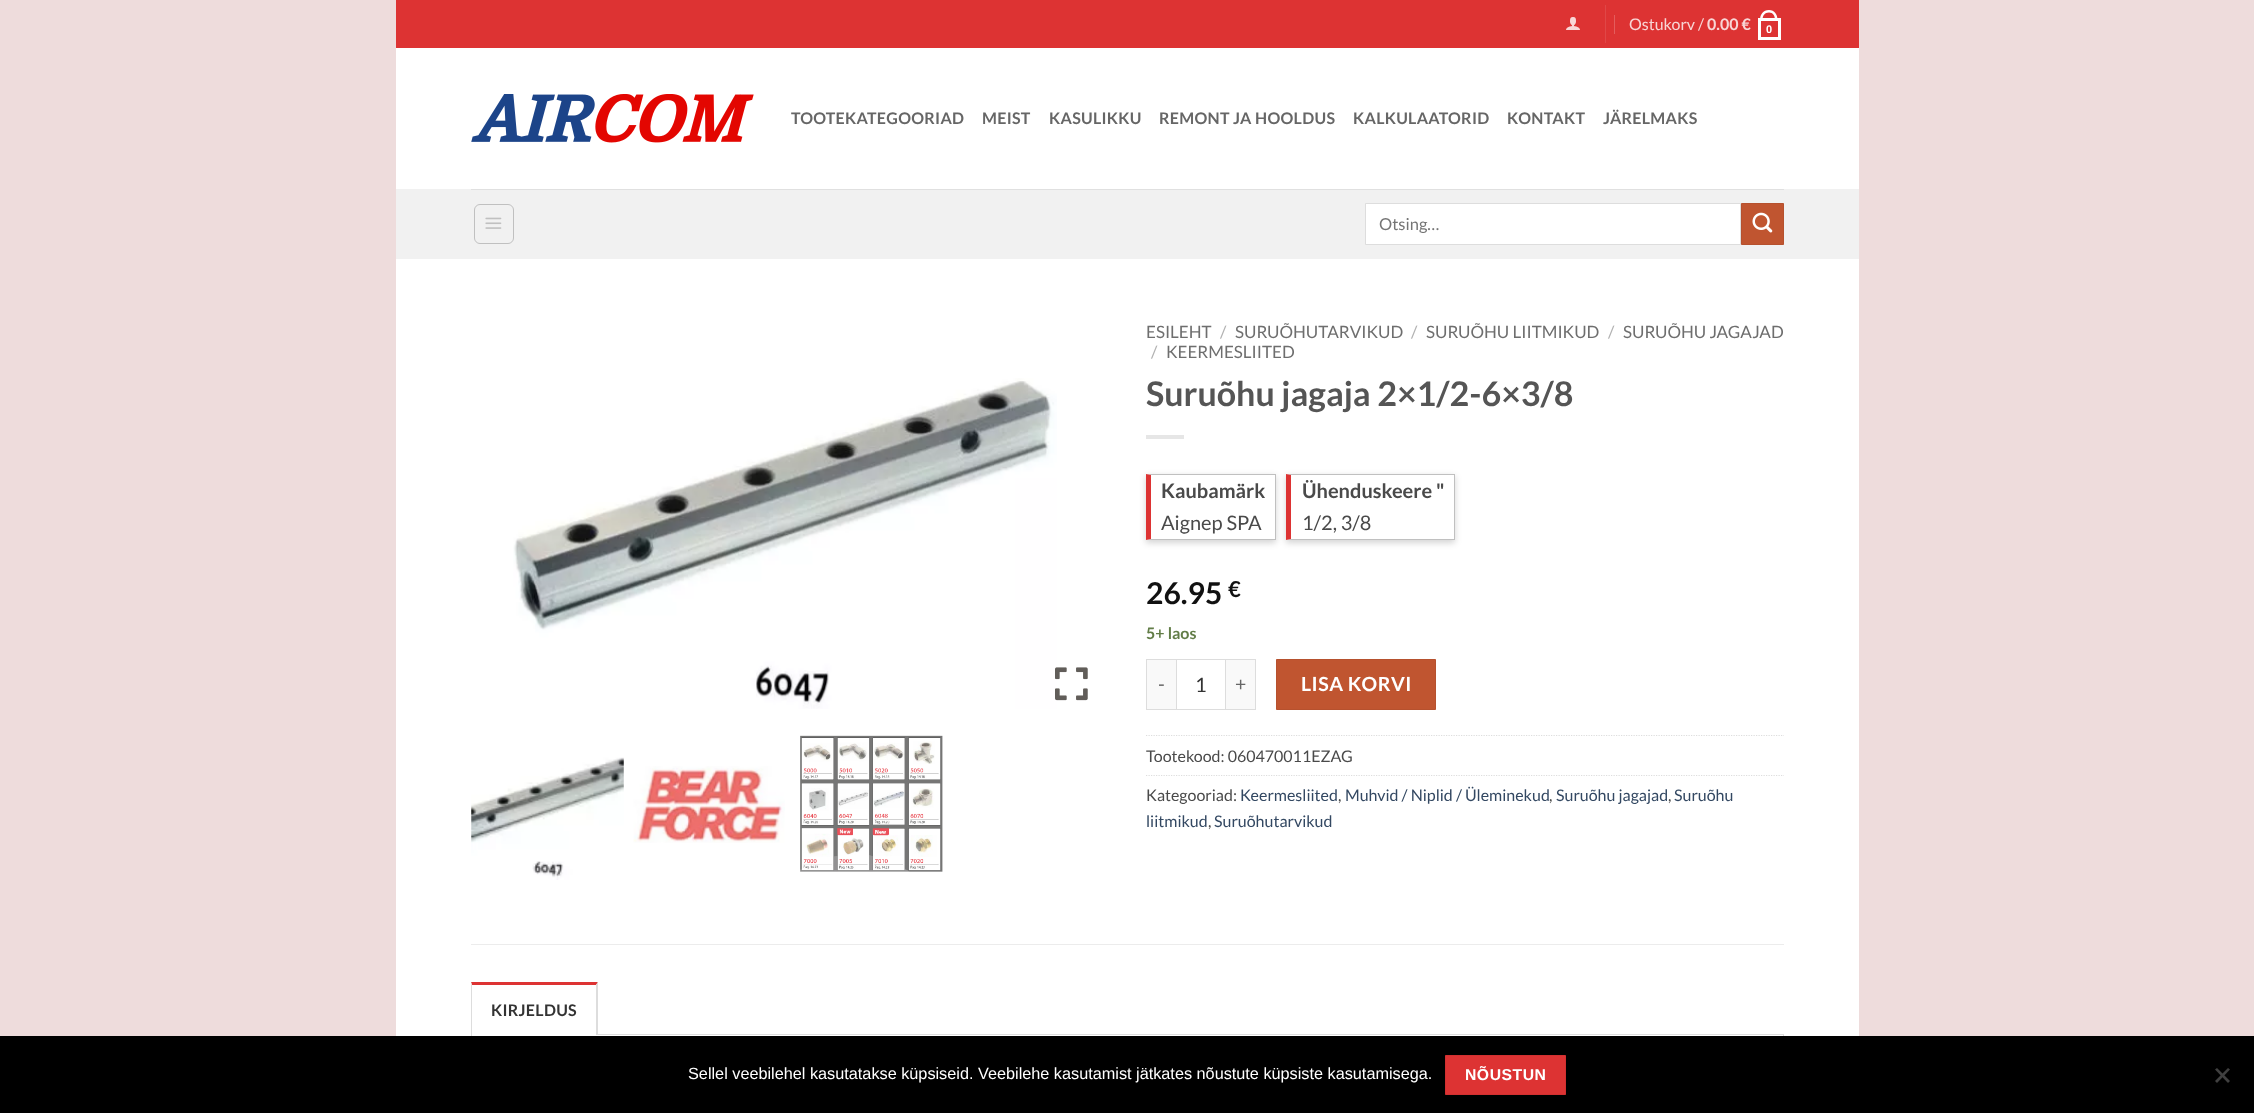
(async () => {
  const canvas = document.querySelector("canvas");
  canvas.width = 2254;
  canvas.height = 1113;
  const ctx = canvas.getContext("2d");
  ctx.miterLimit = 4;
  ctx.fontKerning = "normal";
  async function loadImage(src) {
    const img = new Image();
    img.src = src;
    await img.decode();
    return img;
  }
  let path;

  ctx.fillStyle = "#eedcdc";
  ctx.fillRect(0, 0, 2254, 1113);
  ctx.fillStyle = "#ffffff";
  ctx.fillRect(396, 48, 1463, 988);
  ctx.fillStyle = "#dd3333";
  ctx.fillRect(396, 0, 1463, 48);
  ctx.drawImage(await loadImage("img/1.png"), 1566, 17, 14, 13);
  ctx.fillStyle = "#e04747";
  ctx.fillRect(1605, 5, 1, 38);
  ctx.fillStyle = "#e45c5c";
  ctx.fillRect(1614, 15, 1, 19);
  ctx.strokeStyle = "#ffffff";
  ctx.lineWidth = 3;
  ctx.strokeRect(1759.5, 19.5, 20, 19);
  ctx.fillStyle = "#ffffff";
  path = new Path2D("M1769 10C1774.5 10 1777.5 14.5 1777.5 20H1760C1760 14.5 1763 10 1769 10ZM1769 12.5C1773 12.5 1775 16 1775 20H1762.5C1762.5 16 1764.5 12.5 1769 12.5Z");
  ctx.fill(path, "evenodd");
  ctx.drawImage(await loadImage("img/2.png"), 471, 94, 283, 49);
  ctx.fillStyle = "#f1f1f1";
  ctx.fillRect(396, 189, 1463, 70);
  ctx.fillStyle = "#e0e0e0";
  ctx.fillRect(471, 189, 1313, 1);
  ctx.beginPath();
  ctx.roundRect(474.5, 204.5, 39, 39, 5.5);
  ctx.strokeStyle = "#c0c0c0";
  ctx.lineWidth = 1;
  ctx.stroke();
  ctx.drawImage(await loadImage("img/3.png"), 485, 217, 17, 12);
  ctx.fillStyle = "#ffffff";
  ctx.beginPath();
  ctx.rect(1365.5, 203.5, 375, 41);
  ctx.fill();
  ctx.strokeStyle = "#dddddd";
  ctx.stroke();
  ctx.fillStyle = "#c05530";
  ctx.beginPath();
  ctx.rect(1741.5, 203.5, 42, 41);
  ctx.fill();
  ctx.strokeStyle = "#b6512e";
  ctx.stroke();
  ctx.drawImage(await loadImage("img/4.png"), 1752, 212, 21, 21);
  ctx.drawImage(await loadImage("img/5.png"), 513, 378, 544, 331);
  ctx.drawImage(await loadImage("img/6.png"), 1055, 667, 33, 34);
  ctx.drawImage(await loadImage("img/7.png"), 471, 757, 153, 123);
  ctx.drawImage(await loadImage("img/8.png"), 633, 766, 152, 77);
  ctx.drawImage(await loadImage("img/9.png"), 800, 735, 143, 137);
  ctx.fillStyle = "#e6e6e6";
  ctx.fillRect(1146, 435, 38, 4);
  ctx.save();
  path = new Path2D("M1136 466H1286V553H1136ZM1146 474H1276V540H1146Z");
  ctx.clip(path, "evenodd");
  ctx.fillStyle = "rgba(0, 0, 0, 0.17)";
  ctx.filter = "blur(3px)";
  ctx.beginPath();
  ctx.rect(1146, 476, 130, 67);
  ctx.fill();
  ctx.filter = "none";
  ctx.restore();
  ctx.fillStyle = "#c0c0c0";
  path = new Path2D("M1146 474H1276L1275 475H1151Z");
  ctx.fill(path);
  ctx.fillRect(1275, 474, 1, 66);
  path = new Path2D("M1276 540H1146L1151 539H1275Z");
  ctx.fill(path);
  ctx.fillStyle = "#dd3333";
  path = new Path2D("M1146 540V474L1151 475V539Z");
  ctx.fill(path);
  ctx.save();
  path = new Path2D("M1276 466H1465V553H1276ZM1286 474H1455V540H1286Z");
  ctx.clip(path, "evenodd");
  ctx.fillStyle = "rgba(0, 0, 0, 0.17)";
  ctx.filter = "blur(3px)";
  ctx.beginPath();
  ctx.rect(1286, 476, 169, 67);
  ctx.fill();
  ctx.filter = "none";
  ctx.restore();
  ctx.fillStyle = "#c0c0c0";
  path = new Path2D("M1286 474H1455L1454 475H1291Z");
  ctx.fill(path);
  ctx.fillRect(1454, 474, 1, 66);
  path = new Path2D("M1455 540H1286L1291 539H1454Z");
  ctx.fill(path);
  ctx.fillStyle = "#dd3333";
  path = new Path2D("M1286 540V474L1291 475V539Z");
  ctx.fill(path);
  for (const [x, y, w, h, color] of [
    [1147, 660, 29, 49, "#f9f9f9"],
    [1146, 659, 30, 1, "#dddddd"],
    [1146, 709, 30, 1, "#dddddd"],
    [1146, 659, 1, 51, "#dddddd"],
  ]) {
    ctx.fillStyle = color;
    ctx.fillRect(x, y, w, h);
  }
  ctx.strokeStyle = "#dddddd";
  ctx.strokeRect(1176.5, 659.5, 49, 50);
  for (const [x, y, w, h, color] of [
    [1226, 660, 29, 49, "#f9f9f9"],
    [1226, 659, 30, 1, "#dddddd"],
    [1255, 659, 1, 51, "#dddddd"],
    [1226, 709, 30, 1, "#dddddd"],
  ]) {
    ctx.fillStyle = color;
    ctx.fillRect(x, y, w, h);
  }
  ctx.fillStyle = "#c05530";
  ctx.beginPath();
  ctx.rect(1276.5, 659.5, 159, 50);
  ctx.fill();
  ctx.strokeStyle = "#b6512e";
  ctx.stroke();
  path = new Path2D("M1146 735.5H1784");
  ctx.strokeStyle = "#dddddd";
  ctx.lineWidth = 1.2;
  ctx.setLineDash([1.25, 1.25]);
  ctx.stroke(path);
  path = new Path2D("M1146 775.5H1784");
  ctx.stroke(path);
  ctx.fillStyle = "#ececec";
  ctx.fillRect(471, 944, 1313, 1);
  ctx.lineWidth = 1;
  ctx.setLineDash([]);
  ctx.strokeRect(471.5, 1034.5, 1312, 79);
  ctx.fillStyle = "#ffffff";
  ctx.fillRect(471, 1034, 127, 1);
  ctx.fillStyle = "#dd3333";
  path = new Path2D("M471 982H598L596 985H472Z");
  ctx.fill(path);
  ctx.fillStyle = "#dddddd";
  path = new Path2D("M598 982V1035H596V985Z");
  ctx.fill(path);
  path = new Path2D("M471 1035V982L472 985V1035Z");
  ctx.fill(path);
  ctx.fillStyle = "#000000";
  ctx.fillRect(0, 1036, 2254, 77);
  ctx.fillStyle = "#dd3333";
  ctx.beginPath();
  ctx.rect(1445.5, 1055.5, 120, 39);
  ctx.fill();
  ctx.strokeStyle = "#d23030";
  ctx.stroke();
  ctx.fillStyle = "#404040";
  path = new Path2D("M2228 1068L2230 1069.5L2217 1083L2215 1081Z");
  ctx.fill(path);
  path = new Path2D("M2215 1069.5L2217 1068L2230 1081L2228 1083Z");
  ctx.fill(path);
  ctx.font = "16px Lato";
  ctx.fillStyle = "#f8d6d6";
  ctx.fillText("Ostukorv /", 1629, 30);
  ctx.font = "bold 16px Lato";
  ctx.fillText("0.00 €", 1707, 30);
  ctx.font = "bold 11px Liberation Sans";
  ctx.fillStyle = "#ffffff";
  ctx.fillText("0", 1766, 33);
  ctx.letterSpacing = "0.3px";
  ctx.font = "bold 16px Lato";
  ctx.fillStyle = "#666666";
  for (const [text, x, y] of [
    ["TOOTEKATEGOORIAD", 791, 124],
    ["MEIST", 982, 124],
    ["KASULIKKU", 1049, 124],
    ["REMONT JA HOOLDUS", 1159, 124],
    ["KALKULAATORID", 1353, 124],
    ["KONTAKT", 1507, 124],
    ["JÄRELMAKS", 1603, 124],
  ]) {
    ctx.fillText(text, x, y);
  }
  ctx.letterSpacing = "0px";
  ctx.font = "16.5px Lato";
  ctx.fillStyle = "#757575";
  ctx.fillText("Otsing…", 1379, 230);
  ctx.font = "17px Lato";
  ctx.fillStyle = "#6e6e6e";
  ctx.fillText("ESILEHT", 1146, 338);
  ctx.fillStyle = "#b2b2b2";
  ctx.fillText("/", 1220, 338);
  ctx.fillStyle = "#6e6e6e";
  ctx.fillText("SURUÕHUTARVIKUD", 1235, 338);
  ctx.fillStyle = "#b2b2b2";
  ctx.fillText("/", 1411, 338);
  ctx.fillStyle = "#6e6e6e";
  ctx.fillText("SURUÕHU LIITMIKUD", 1426, 338);
  ctx.fillStyle = "#b2b2b2";
  ctx.fillText("/", 1608, 338);
  ctx.fillStyle = "#6e6e6e";
  ctx.fillText("SURUÕHU JAGAJAD", 1623, 338);
  ctx.fillStyle = "#b2b2b2";
  ctx.fillText("/", 1151, 358);
  ctx.fillStyle = "#6e6e6e";
  ctx.fillText("KEERMESLIITED", 1166, 358);
  ctx.font = "bold 34px Lato";
  ctx.fillStyle = "#555555";
  ctx.fillText("Suruõhu jagaja 2×1/2-6×3/8", 1146, 406);
  ctx.font = "bold 20px Lato";
  ctx.fillStyle = "#4a4a4a";
  ctx.fillText("Kaubamärk", 1161, 498);
  ctx.font = "20px Lato";
  ctx.fillText("Aignep SPA", 1161, 530);
  ctx.font = "bold 20px Lato";
  ctx.fillText("Ühenduskeere \"", 1302, 498);
  ctx.font = "20px Lato";
  ctx.fillText("1/2, 3/8", 1302, 530);
  ctx.font = "bold 30px Lato";
  ctx.fillStyle = "#111111";
  ctx.fillText("26.95", 1146, 604);
  ctx.font = "bold 22px Lato";
  ctx.fillText("€", 1228, 597);
  ctx.font = "bold 16px Lato";
  ctx.fillStyle = "#627d47";
  ctx.fillText("5+ laos", 1146, 639);
  ctx.letterSpacing = "0.5px";
  ctx.font = "19.5px Lato";
  ctx.fillStyle = "#666666";
  ctx.fillText("-", 1158, 691);
  ctx.letterSpacing = "0px";
  ctx.font = "20px Lato";
  ctx.fillStyle = "#333333";
  ctx.fillText("1", 1195, 692);
  ctx.letterSpacing = "0.5px";
  ctx.font = "19.5px Lato";
  ctx.fillStyle = "#666666";
  ctx.fillText("+", 1235, 691);
  ctx.font = "bold 19.5px Lato";
  ctx.fillStyle = "#ffffff";
  ctx.fillText("LISA KORVI", 1301, 691);
  ctx.letterSpacing = "0px";
  ctx.font = "16px Lato";
  ctx.fillStyle = "#4a4a4a";
  ctx.fillText("Tootekood: 060470011EZAG", 1146, 762);
  ctx.fillText("Kategooriad:", 1146, 801);
  ctx.fillStyle = "#334862";
  ctx.fillText("Keermesliited", 1240, 801);
  ctx.fillStyle = "#4a4a4a";
  ctx.fillText(",", 1338, 801);
  ctx.fillStyle = "#334862";
  ctx.fillText("Muhvid / Niplid / Üleminekud", 1345, 801);
  ctx.fillStyle = "#4a4a4a";
  ctx.fillText(",", 1549, 801);
  ctx.fillStyle = "#334862";
  ctx.fillText("Suruõhu jagajad", 1556, 801);
  ctx.fillStyle = "#4a4a4a";
  ctx.fillText(",", 1668, 801);
  ctx.fillStyle = "#334862";
  ctx.fillText("Suruõhu", 1674, 801);
  ctx.fillText("liitmikud", 1146, 827);
  ctx.fillStyle = "#4a4a4a";
  ctx.fillText(",", 1208, 827);
  ctx.fillStyle = "#334862";
  ctx.fillText("Suruõhutarvikud", 1214, 827);
  ctx.letterSpacing = "0.3px";
  ctx.font = "bold 16px Lato";
  ctx.fillStyle = "#333333";
  ctx.fillText("KIRJELDUS", 491, 1016);
  ctx.letterSpacing = "0px";
  ctx.font = "16.25px Liberation Sans";
  ctx.fillStyle = "#ffffff";
  ctx.fillText("Sellel veebilehel kasutatakse küpsiseid. Veebilehe kasutamist jätkates nõustute küpsiste kasutamisega.", 688, 1079);
  ctx.letterSpacing = "0.5px";
  ctx.font = "bold 15.75px Liberation Sans";
  ctx.fillText("NÕUSTUN", 1465, 1080);
})();
